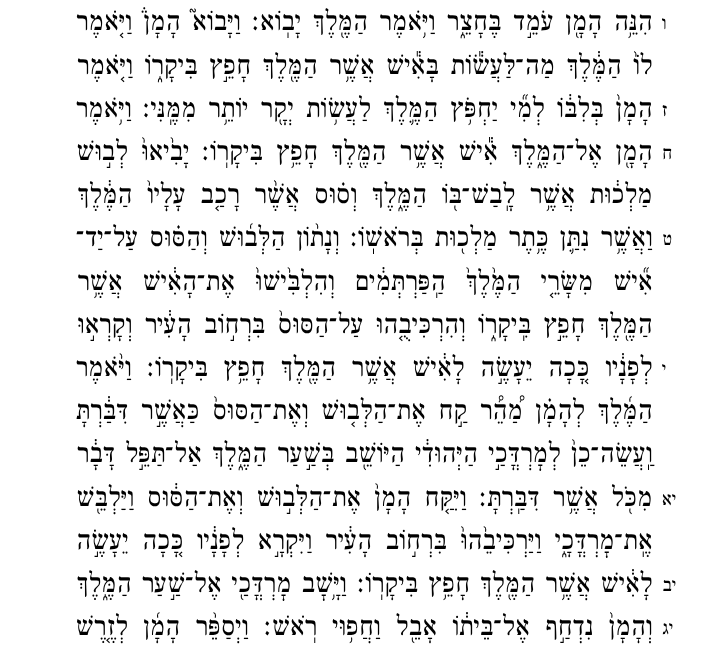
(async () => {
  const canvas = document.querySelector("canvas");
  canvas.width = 727;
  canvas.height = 645;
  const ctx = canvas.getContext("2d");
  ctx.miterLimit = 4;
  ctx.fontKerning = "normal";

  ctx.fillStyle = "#ffffff";
  ctx.fillRect(0, 0, 727, 645);
  ctx.direction = "rtl";
  ctx.font = "500 20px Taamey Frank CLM";
  ctx.fillStyle = "#000000";
  ctx.fillText("ו", 666, 29);
  ctx.wordSpacing = "2px";
  ctx.font = "500 28.8px Taamey Frank CLM";
  for (const [text, x, y] of [
    ["הִנֵּ֥ה הָמָ֖ן עֹמֵ֣ד בֶּחָצֵ֑ר וַיֹּ֥אמֶר הַמֶּ֖לֶךְ יָבֽוֹא׃", 652, 30],
    ["וַיָּבוֹא֮ הָמָן֒ וַיֹּ֤אמֶר", 240, 30],
    ["לוֹ֙ הַמֶּ֔לֶךְ מַה־לַּעֲשׂ֕וֹת בָּאִ֕ישׁ אֲשֶׁ֥ר הַמֶּ֖לֶךְ חָפֵ֣ץ בִּיקָר֑וֹ וַיֹּ֤אמֶר", 652, 74],
  ]) {
    ctx.fillText(text, x, y);
  }
  ctx.wordSpacing = "0px";
  ctx.font = "500 20px Taamey Frank CLM";
  ctx.fillText("ז", 667, 116);
  ctx.wordSpacing = "2.5px";
  ctx.font = "500 28.8px Taamey Frank CLM";
  ctx.fillText("הָמָן֙ בְּלִבּ֔וֹ לְמִ֞י יַחְפֹּ֥ץ הַמֶּ֛לֶךְ לַעֲשׂ֥וֹת יְקָ֖ר יוֹתֵ֥ר מִמֶּֽנִּי׃", 652, 117);
  ctx.wordSpacing = "0px";
  ctx.fillText("וַיֹּ֥אמֶר", 131, 117);
  ctx.font = "500 20px Taamey Frank CLM";
  ctx.fillText("ח", 672, 159);
  ctx.wordSpacing = "3.75px";
  ctx.font = "500 28.8px Taamey Frank CLM";
  ctx.fillText("הָמָ֖ן אֶל־הַמֶּ֑לֶךְ אִ֕ישׁ אֲשֶׁ֥ר הַמֶּ֖לֶךְ חָפֵ֥ץ בִּיקָרֽוֹ׃", 652, 160);
  ctx.fillText("יָבִ֙יאוּ֙ לְב֣וּשׁ", 189, 160);
  ctx.wordSpacing = "5px";
  ctx.fillText("מַלְכ֔וּת אֲשֶׁ֥ר לָֽבַשׁ־בּ֖וֹ הַמֶּ֑לֶךְ וְס֗וּס אֲשֶׁ֨ר רָכַ֤ב עָלָיו֙ הַמֶּ֔לֶךְ", 652, 203);
  ctx.wordSpacing = "0px";
  ctx.font = "500 20px Taamey Frank CLM";
  ctx.fillText("ט", 672, 245);
  ctx.wordSpacing = "1.5px";
  ctx.font = "500 28.8px Taamey Frank CLM";
  ctx.fillText("וַאֲשֶׁ֥ר נִתַּ֛ן כֶּ֥תֶר מַלְכ֖וּת בְּרֹאשֽׁוֹ׃", 652, 246);
  ctx.fillText("וְנָת֨וֹן הַלְּב֜וּשׁ וְהַסּ֗וּס עַל־יַד־", 339, 246);
  ctx.wordSpacing = "10.5px";
  ctx.fillText("אִ֞ישׁ מִשָּׂרֵ֤י הַמֶּ֙לֶךְ֙ הַֽפַּרְתְּמִ֔ים וְהִלְבִּ֙ישׁוּ֙ אֶת־הָאִ֔ישׁ אֲשֶׁ֥ר", 652, 290);
  ctx.wordSpacing = "2.75px";
  ctx.fillText("הַמֶּ֖לֶךְ חָפֵ֣ץ בִּֽיקָר֑וֹ וְהִרְכִּיבֻ֤הוּ עַל־הַסּוּס֙ בִּרְח֣וֹב הָעִ֔יר וְקָרְא֣וּ", 652, 333);
  ctx.wordSpacing = "0px";
  ctx.font = "500 20px Taamey Frank CLM";
  ctx.fillText("י", 666, 375);
  ctx.wordSpacing = "6px";
  ctx.font = "500 28.8px Taamey Frank CLM";
  ctx.fillText("לְפָנָ֔יו כָּ֚כָה יֵעָשֶׂ֣ה לָאִ֔ישׁ אֲשֶׁ֥ר הַמֶּ֖לֶךְ חָפֵ֥ץ בִּיקָרֽוֹ׃", 652, 376);
  ctx.wordSpacing = "0px";
  ctx.fillText("וַיֹּ֨אמֶר", 131, 376);
  ctx.wordSpacing = "3px";
  ctx.fillText("הַמֶּ֜לֶךְ לְהָמָ֗ן מַ֠הֵ֠ר קַ֣ח אֶת־הַלְּב֤וּשׁ וְאֶת־הַסּוּס֙ כַּאֲשֶׁ֣ר דִּבַּ֔רְתָּ", 652, 419);
  ctx.wordSpacing = "0.75px";
  ctx.fillText("וַֽעֲשֵׂה־כֵן֙ לְמׇרְדֳּכַ֣י הַיְּהוּדִ֔י הַיּוֹשֵׁ֖ב בְּשַׁ֣עַר הַמֶּ֑לֶךְ אַל־תַּפֵּ֣ל דָּבָ֔ר", 652, 462);
  ctx.wordSpacing = "0px";
  ctx.font = "500 20px Taamey Frank CLM";
  ctx.fillText("יא", 676, 505);
  ctx.wordSpacing = "3.5px";
  ctx.font = "500 28.8px Taamey Frank CLM";
  ctx.fillText("מִכֹּ֖ל אֲשֶׁ֥ר דִּבַּֽרְתָּ׃", 652, 506);
  ctx.fillText("וַיִּקַּ֤ח הָמָן֙ אֶת־הַלְּב֣וּשׁ וְאֶת־הַסּ֔וּס וַיַּלְבֵּ֖שׁ", 466, 506);
  ctx.wordSpacing = "3.75px";
  ctx.fillText("אֶֽת־מׇרְדֳּכָ֑י וַיַּרְכִּיבֵ֙הוּ֙ בִּרְח֣וֹב הָעִ֔יר וַיִּקְרָ֣א לְפָנָ֔יו כָּ֚כָה יֵעָשֶׂ֣ה", 652, 549);
  ctx.wordSpacing = "0px";
  ctx.font = "500 20px Taamey Frank CLM";
  ctx.fillText("יב", 676, 591);
  ctx.wordSpacing = "0.5px";
  ctx.font = "500 28.8px Taamey Frank CLM";
  ctx.fillText("לָאִ֔ישׁ אֲשֶׁ֥ר הַמֶּ֖לֶךְ חָפֵ֥ץ בִּיקָרֽוֹ׃", 652, 592);
  ctx.fillText("וַיָּ֥שׇׁב מׇרְדֳּכַ֖י אֶל־שַׁ֣עַר הַמֶּ֑לֶךְ", 346, 592);
  ctx.wordSpacing = "0px";
  ctx.font = "500 20px Taamey Frank CLM";
  ctx.fillText("יג", 673, 634);
  ctx.wordSpacing = "5.75px";
  ctx.font = "500 28.8px Taamey Frank CLM";
  ctx.fillText("וְהָמָן֙ נִדְחַ֣ף אֶל־בֵּית֔וֹ אָבֵ֖ל וַחֲפ֥וּי רֹֽאשׁ׃", 652, 635);
  ctx.fillText("וַיְסַפֵּ֨ר הָמָ֜ן לְזֶ֤רֶשׁ", 248, 635);
})();
